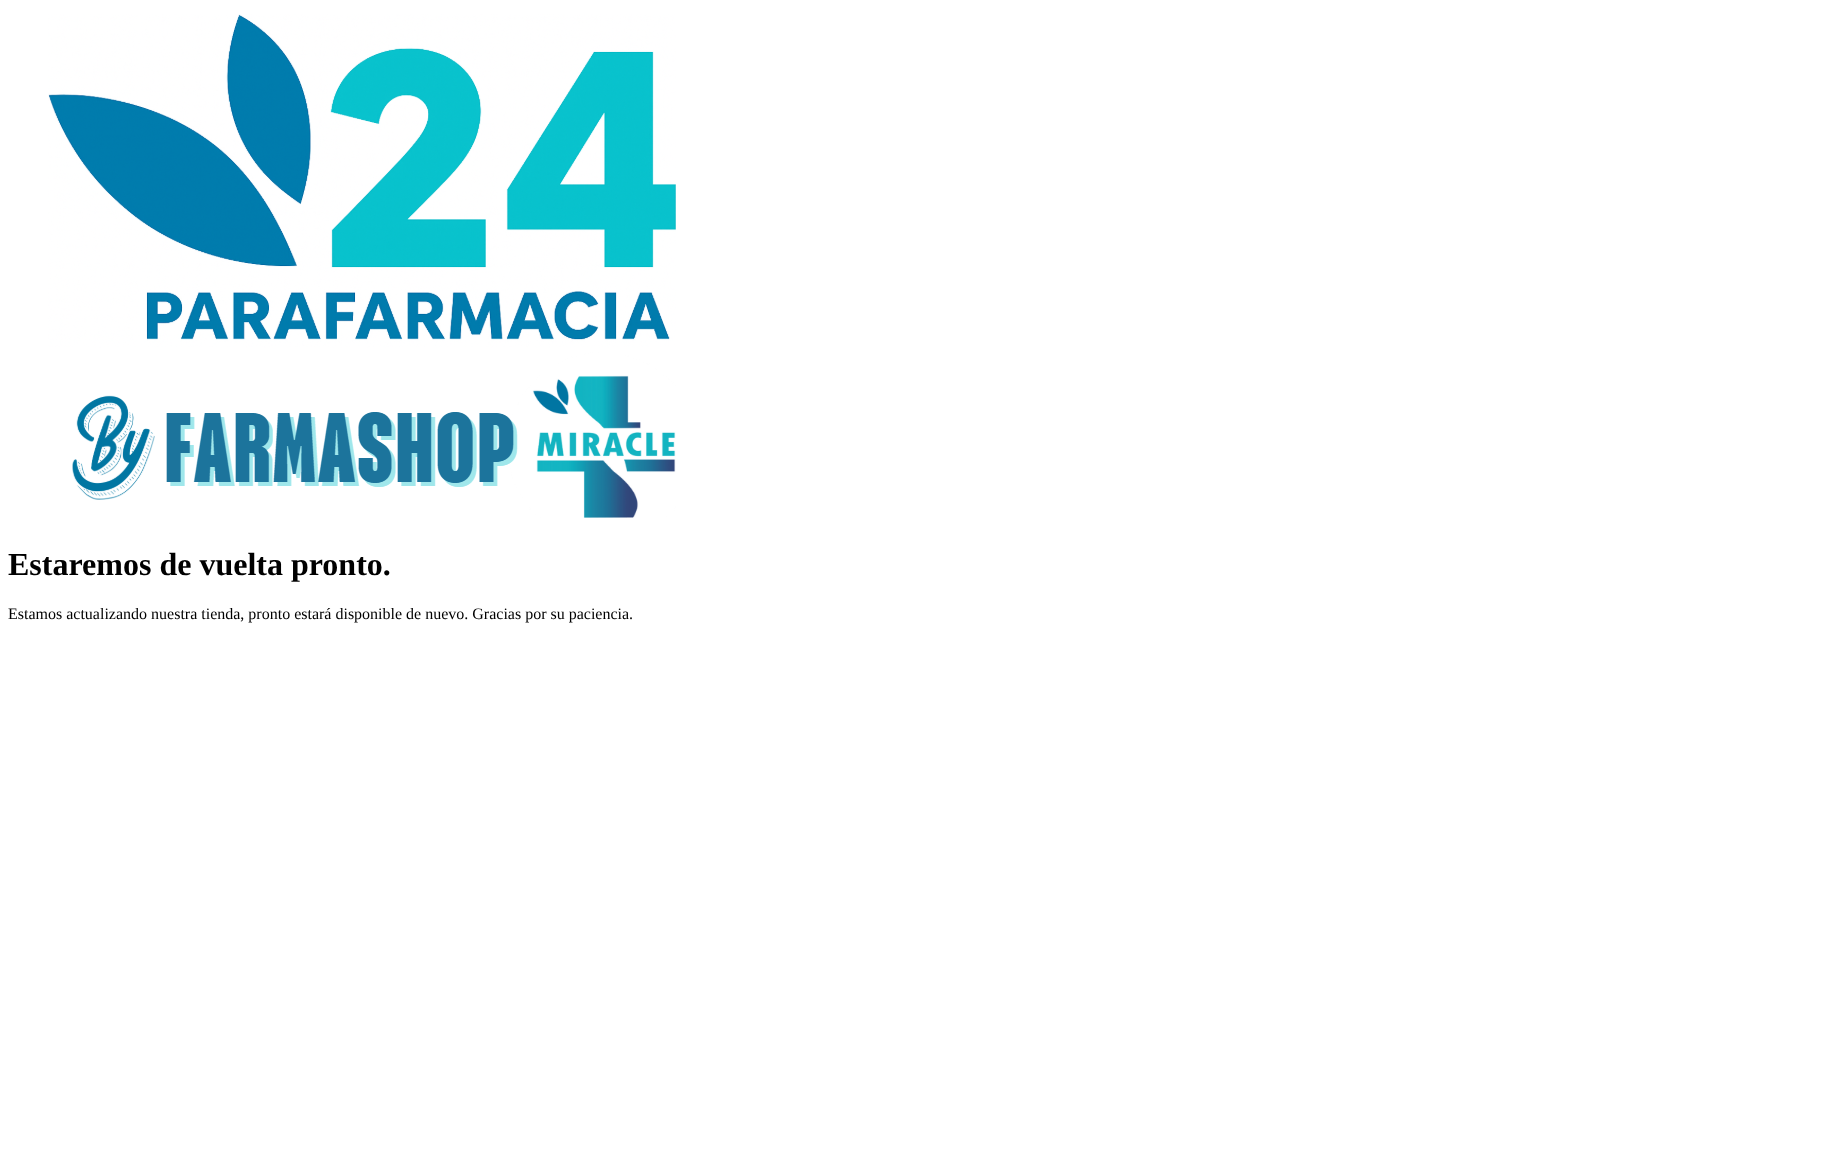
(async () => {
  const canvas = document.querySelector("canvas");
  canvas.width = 1843;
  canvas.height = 1172;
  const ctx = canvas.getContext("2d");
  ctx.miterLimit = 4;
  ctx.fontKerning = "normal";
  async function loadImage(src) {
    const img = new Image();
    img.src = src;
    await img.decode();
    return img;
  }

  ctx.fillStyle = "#ffffff";
  ctx.fillRect(0, 0, 1843, 1172);
  ctx.drawImage(await loadImage("img/1.png"), 48, 14, 628, 504);
  ctx.font = "bold 32px Liberation Serif";
  ctx.fillStyle = "#000000";
  ctx.fillText("Estaremos de vuelta pronto.", 8, 575);
  ctx.font = "16px Liberation Serif";
  ctx.fillText("Estamos actualizando nuestra tienda, pronto estará disponible de nuevo. Gracias por su paciencia.", 8, 619);
})();
